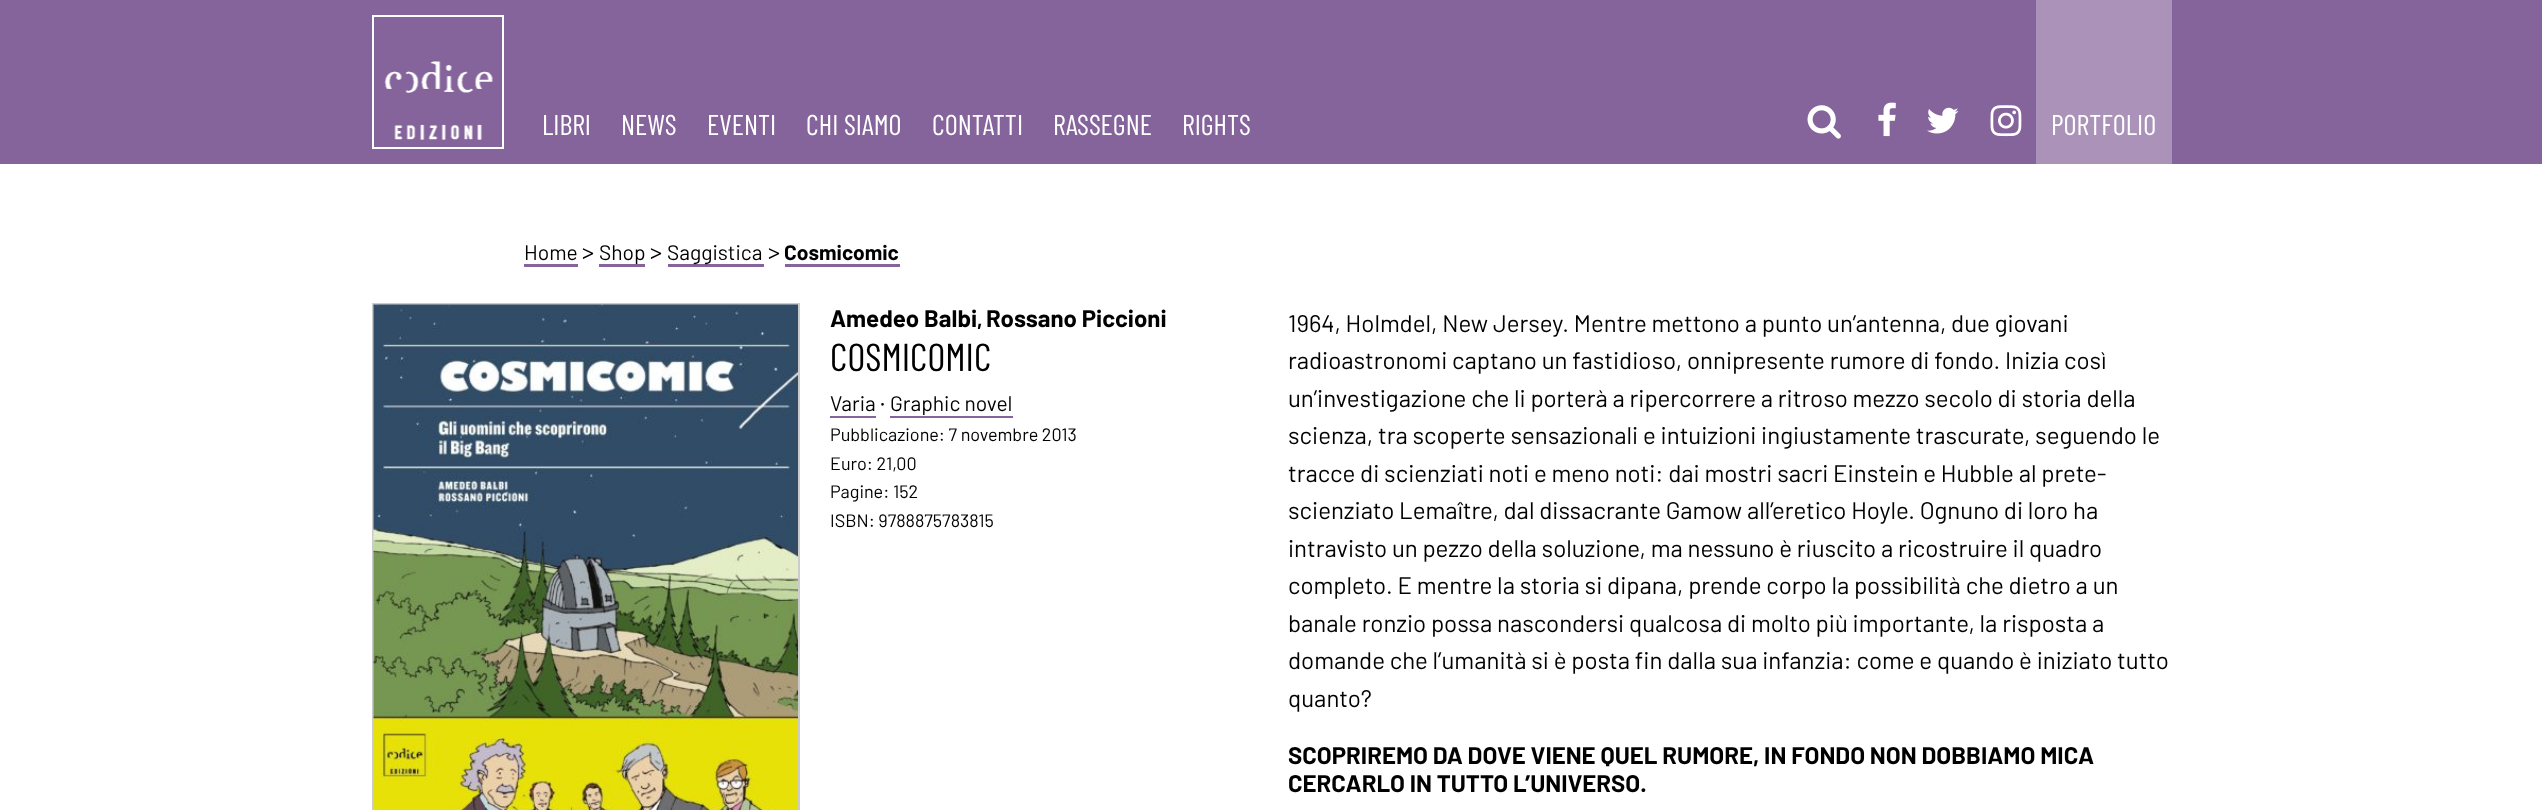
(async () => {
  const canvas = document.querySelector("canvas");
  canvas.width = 2542;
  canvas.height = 810;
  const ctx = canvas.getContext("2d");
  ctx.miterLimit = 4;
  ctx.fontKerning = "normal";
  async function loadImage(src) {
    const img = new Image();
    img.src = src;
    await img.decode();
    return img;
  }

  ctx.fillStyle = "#ffffff";
  ctx.fillRect(0, 0, 2542, 810);
  ctx.fillStyle = "#85639b";
  ctx.fillRect(0, 0, 2542, 164);
  ctx.strokeStyle = "#ffffff";
  ctx.lineWidth = 2;
  ctx.strokeRect(373, 16, 130, 132);
  ctx.drawImage(await loadImage("img/1.png"), 384, 61, 109, 79);
  ctx.drawImage(await loadImage("img/2.png"), 1807, 105, 34, 34);
  ctx.drawImage(await loadImage("img/3.png"), 1878, 102, 18, 35);
  ctx.drawImage(await loadImage("img/4.png"), 1927, 107, 32, 27);
  ctx.drawImage(await loadImage("img/5.png"), 1990, 105, 32, 32);
  for (const [x, y, w, h, color] of [
    [2036, 0, 136, 164, "#aa92b9"],
    [524, 264, 54, 3, "#85639b"],
    [599, 264, 46, 3, "#85639b"],
    [668, 264, 96, 3, "#85639b"],
    [785, 264, 115, 3, "#85639b"],
  ]) {
    ctx.fillStyle = color;
    ctx.fillRect(x, y, w, h);
  }
  ctx.strokeStyle = "#cccccc";
  ctx.strokeRect(373, 304, 426, 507);
  ctx.drawImage(await loadImage("img/6.png"), 373, 304, 425, 506);
  ctx.fillRect(830, 416, 46, 2);
  ctx.fillRect(890, 416, 123, 2);
  ctx.font = "28.5px Barlow Condensed";
  ctx.fillStyle = "#ffffff";
  for (const [text, x, y] of [
    ["LIBRI", 542, 135],
    ["NEWS", 621, 135],
    ["EVENTI", 707, 135],
    ["CHI SIAMO", 806, 135],
    ["CONTATTI", 932, 135],
    ["RASSEGNE", 1053, 135],
    ["RIGHTS", 1182, 135],
    ["PORTFOLIO", 2051, 135],
  ]) {
    ctx.fillText(text, x, y);
  }
  ctx.font = "21px Barlow";
  ctx.fillStyle = "#000000";
  ctx.fillText("Home", 524, 260);
  ctx.font = "24px Barlow";
  ctx.fillText(">", 582, 260);
  ctx.font = "21px Barlow";
  ctx.fillText("Shop", 599, 260);
  ctx.font = "24px Barlow";
  ctx.fillText(">", 650, 260);
  ctx.font = "21px Barlow";
  ctx.fillText("Saggistica", 667, 260);
  ctx.font = "24px Barlow";
  ctx.fillText(">", 768, 260);
  ctx.font = "bold 21px Barlow";
  ctx.fillText("Cosmicomic", 784, 260);
  ctx.font = "bold 24px Barlow";
  ctx.fillText("Amedeo Balbi", 830, 327);
  ctx.font = "bold 21px Barlow";
  ctx.fillText(",", 977, 327);
  ctx.font = "bold 24px Barlow";
  ctx.fillText("Rossano Piccioni", 986, 327);
  ctx.font = "39px Barlow Condensed";
  ctx.fillText("COSMICOMIC", 830, 371);
  ctx.font = "21px Barlow";
  ctx.fillText("Varia", 830, 411);
  ctx.font = "24px Barlow";
  ctx.fillText("·", 880, 411);
  ctx.font = "21px Barlow";
  ctx.fillText("Graphic novel", 890, 411);
  ctx.font = "18px Barlow";
  for (const [text, x, y] of [
    ["Pubblicazione: 7 novembre 2013", 830, 441],
    ["Euro: 21,00", 830, 470],
    ["Pagine: 152", 830, 498],
    ["ISBN: 9788875783815", 830, 527],
  ]) {
    ctx.fillText(text, x, y);
  }
  ctx.font = "24px Barlow";
  for (const [text, x, y] of [
    ["1964, Holmdel, New Jersey. Mentre mettono a punto un’antenna, due giovani", 1288, 332],
    ["radioastronomi captano un fastidioso, onnipresente rumore di fondo. Inizia così", 1288, 369],
    ["un’investigazione che li porterà a ripercorrere a ritroso mezzo secolo di storia della", 1288, 407],
    ["scienza, tra scoperte sensazionali e intuizioni ingiustamente trascurate, seguendo le", 1288, 444],
    ["tracce di scienziati noti e meno noti: dai mostri sacri Einstein e Hubble al prete-", 1288, 482],
    ["scienziato Lemaître, dal dissacrante Gamow all’eretico Hoyle. Ognuno di loro ha", 1288, 519],
    ["intravisto un pezzo della soluzione, ma nessuno è riuscito a ricostruire il quadro", 1288, 557],
    ["completo. E mentre la storia si dipana, prende corpo la possibilità che dietro a un", 1288, 594],
    ["banale ronzio possa nascondersi qualcosa di molto più importante, la risposta a", 1288, 632],
    ["domande che l’umanità si è posta fin dalla sua infanzia: come e quando è iniziato tutto", 1288, 669],
    ["quanto?", 1288, 707],
  ]) {
    ctx.fillText(text, x, y);
  }
  ctx.font = "bold 24px Barlow";
  ctx.fillText("SCOPRIREMO DA DOVE VIENE QUEL RUMORE, IN FONDO NON DOBBIAMO MICA", 1288, 764);
  ctx.fillText("CERCARLO IN TUTTO L’UNIVERSO.", 1288, 792);
})();
